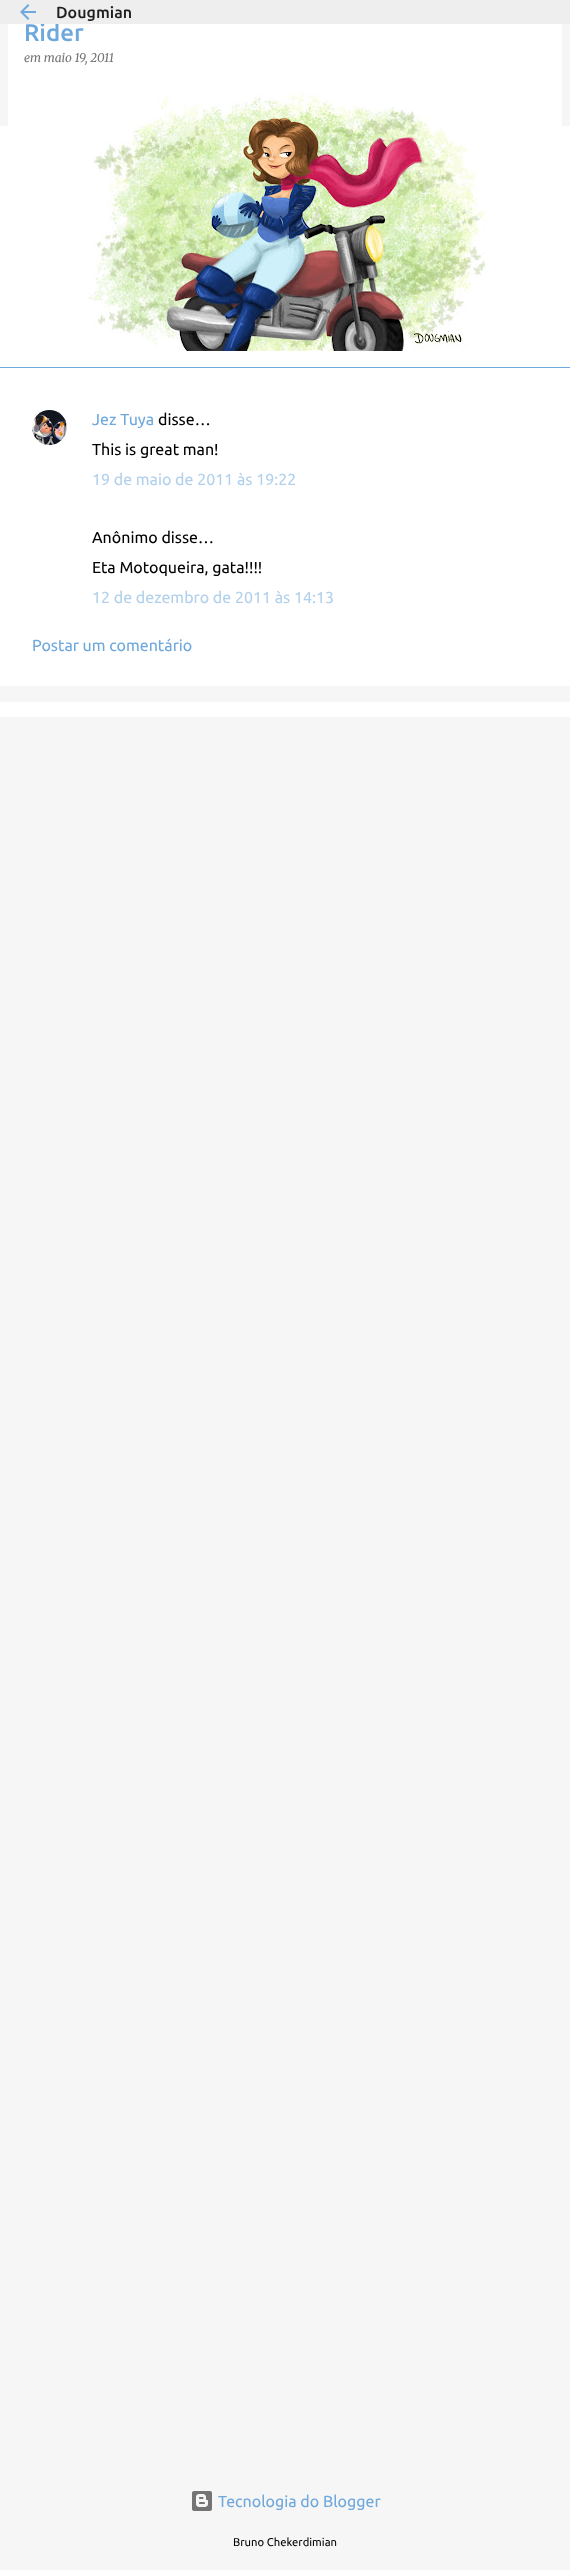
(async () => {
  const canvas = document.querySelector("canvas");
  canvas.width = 570;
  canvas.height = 2570;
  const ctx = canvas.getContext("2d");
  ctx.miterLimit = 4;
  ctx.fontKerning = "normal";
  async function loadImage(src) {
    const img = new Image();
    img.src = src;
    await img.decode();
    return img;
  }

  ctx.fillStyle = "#f6f6f6";
  ctx.fillRect(0, 0, 570, 2570);
  ctx.fillStyle = "#ffffff";
  ctx.fillRect(0, 126, 570, 241);
  ctx.fillRect(8, 24, 554, 102);
  ctx.drawImage(await loadImage("img/2.png"), 87, 93, 398, 258);
  ctx.fillRect(0, 368, 570, 318);
  ctx.fillStyle = "#6fa8dc";
  ctx.fillRect(0, 367, 570, 1);
  ctx.drawImage(await loadImage("img/3.png"), 32, 410, 35, 35);
  ctx.fillStyle = "#ffffff";
  ctx.fillRect(0, 702, 570, 15);
  ctx.drawImage(await loadImage("img/4.png"), 192, 2491, 20, 20);
  ctx.font = "500 24px Ubuntu";
  ctx.fillStyle = "#6fa8dc";
  ctx.fillText("Rider", 24, 41);
  ctx.fillStyle = "#eeeeee";
  ctx.fillRect(0, 0, 570, 24);
  ctx.font = "500 16px Ubuntu";
  ctx.fillStyle = "#1f1f1f";
  ctx.fillText("Dougmian", 56, 18);
  ctx.drawImage(await loadImage("img/1.png"), 20, 4, 16, 16);
  ctx.font = "italic 12px Merriweather";
  ctx.fillStyle = "#747474";
  ctx.fillText("em maio 19, 2011", 24, 62);
  ctx.font = "16px Ubuntu";
  ctx.fillStyle = "#6fa8dc";
  ctx.fillText("Jez Tuya", 92, 425);
  ctx.fillStyle = "#000000";
  ctx.fillText("disse…", 158, 425);
  ctx.fillText("This is great man!", 92, 455);
  ctx.fillStyle = "#b1d0ec";
  ctx.fillText("19 de maio de 2011 às 19:22", 92, 485);
  ctx.fillStyle = "#000000";
  ctx.fillText("Anônimo disse…", 92, 543);
  ctx.fillText("Eta Motoqueira, gata!!!!", 92, 573);
  ctx.fillStyle = "#b1d0ec";
  ctx.fillText("12 de dezembro de 2011 às 14:13", 92, 603);
  ctx.fillStyle = "#6fa8dc";
  ctx.fillText("Postar um comentário", 32, 651);
  ctx.fillText("Tecnologia do Blogger", 218, 2507);
  ctx.font = "11.25px Ubuntu";
  ctx.fillStyle = "#000000";
  ctx.fillText("Bruno Chekerdimian", 233, 2546);
})();
